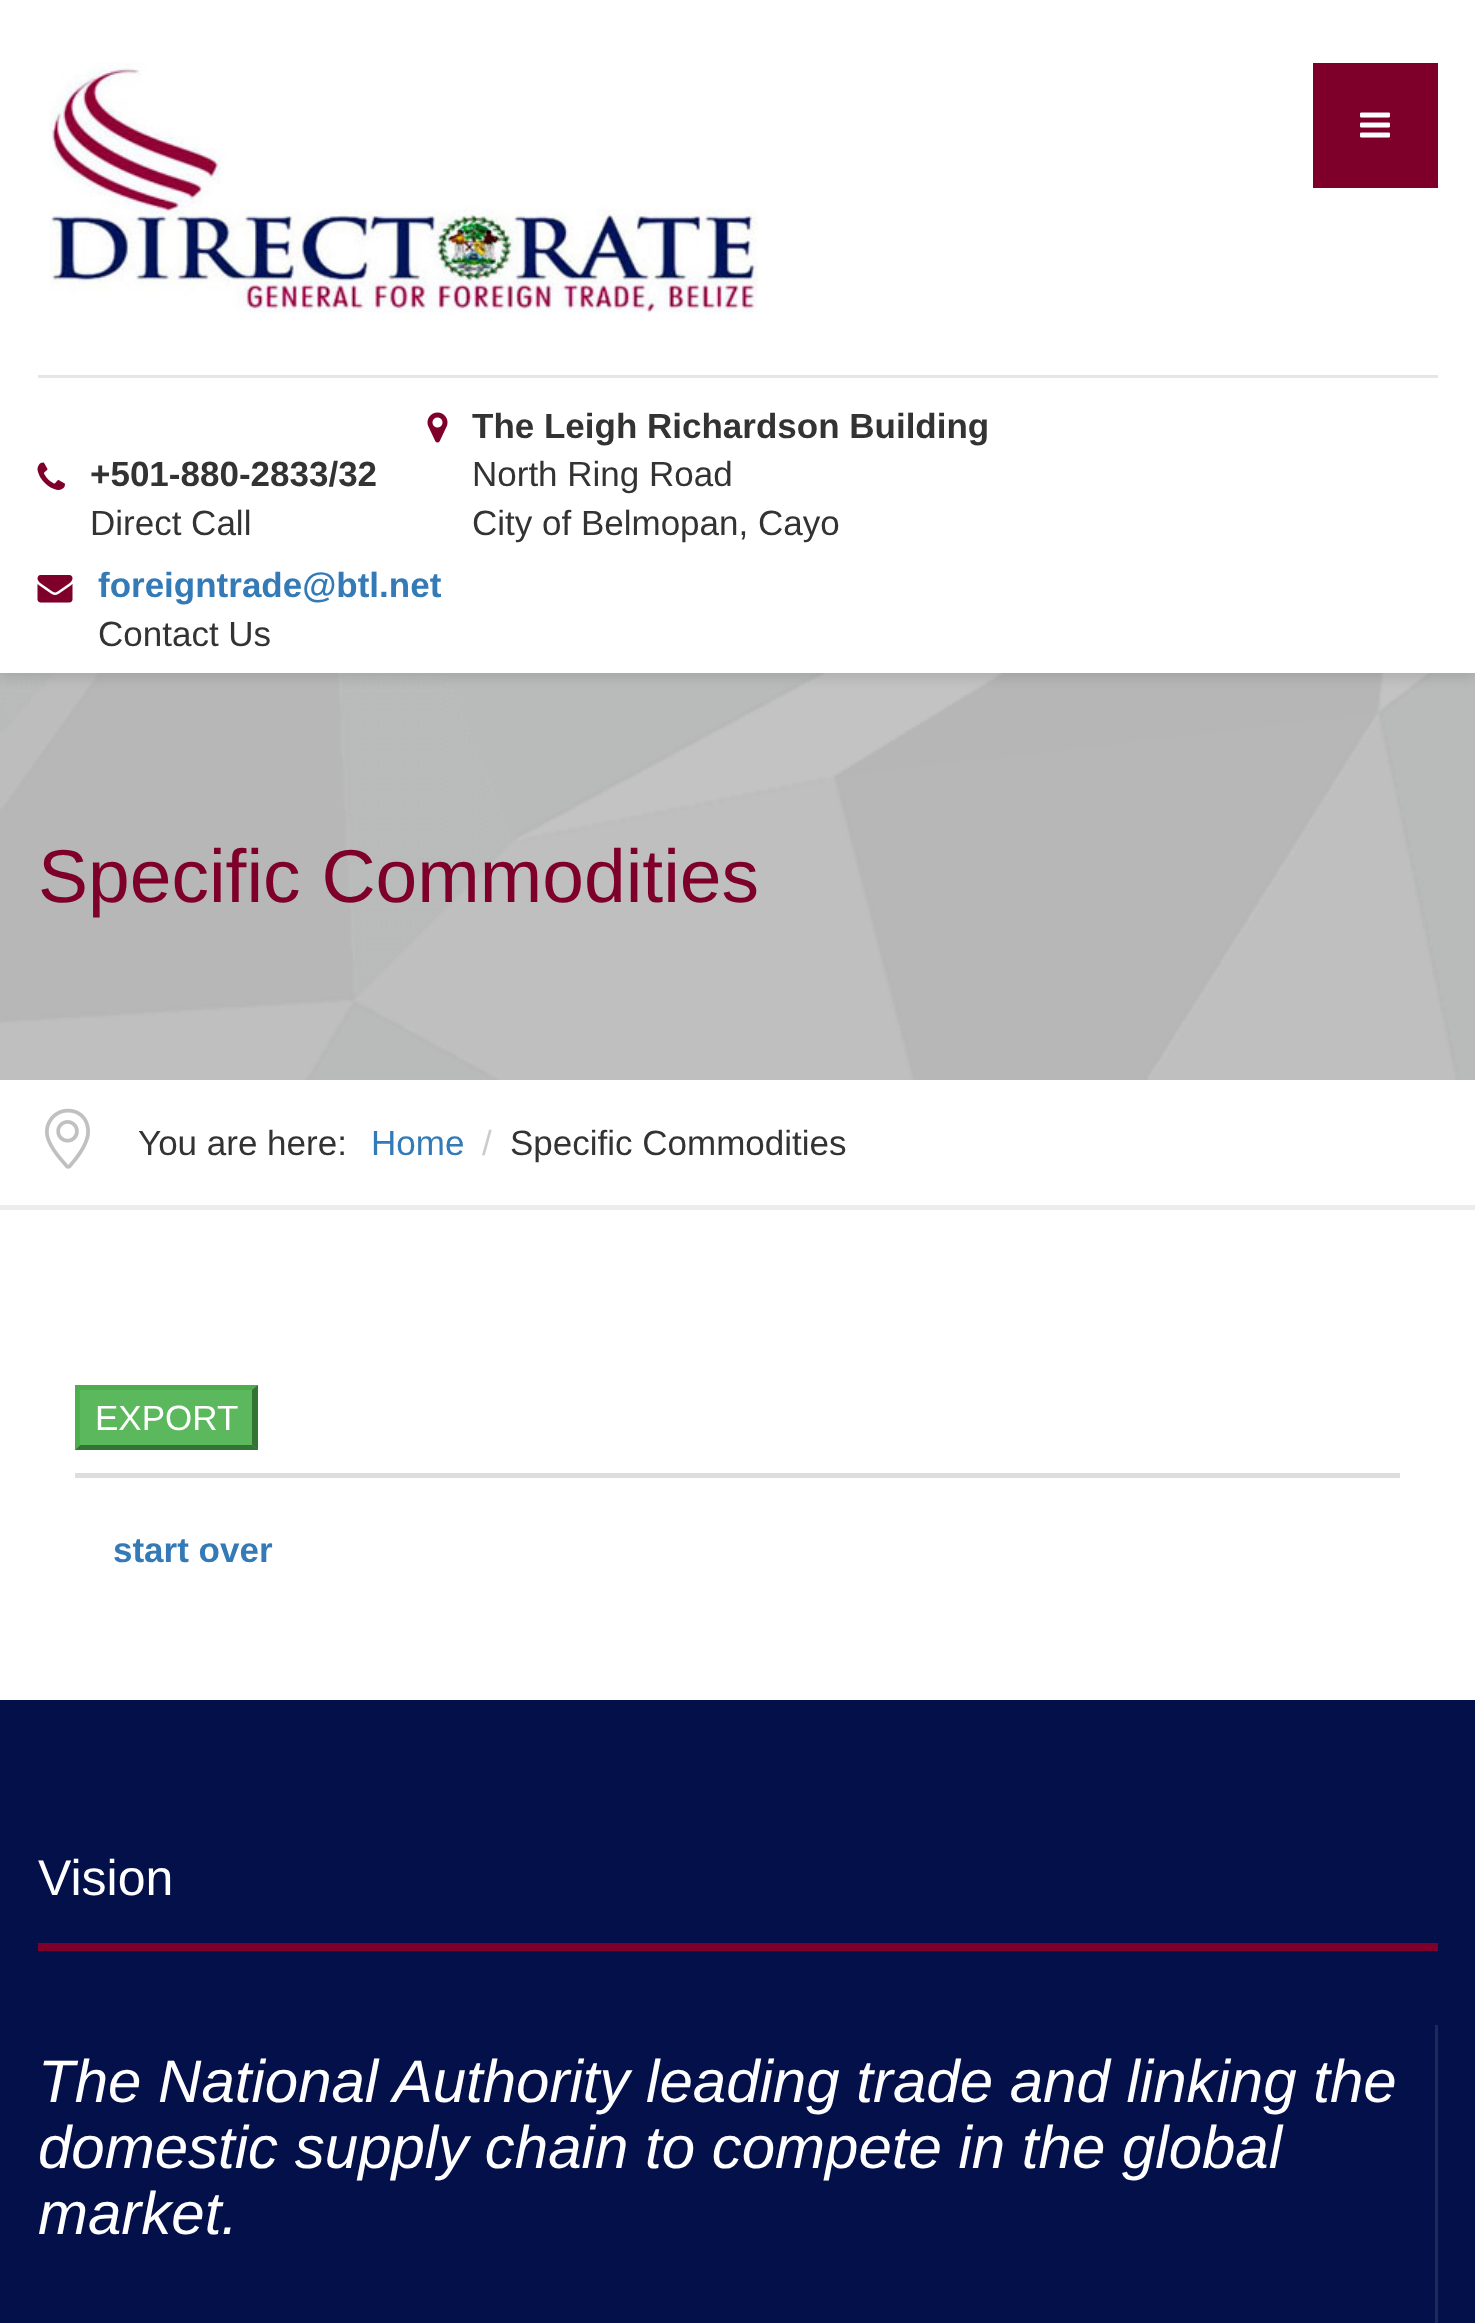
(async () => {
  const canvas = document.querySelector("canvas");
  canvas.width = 1475;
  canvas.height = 2323;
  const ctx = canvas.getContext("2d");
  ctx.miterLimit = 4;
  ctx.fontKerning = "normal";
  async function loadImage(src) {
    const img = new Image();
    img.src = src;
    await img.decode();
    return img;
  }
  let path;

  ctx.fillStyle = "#ffffff";
  ctx.fillRect(0, 0, 1475, 2323);
  ctx.fillStyle = "#c0c0c0";
  ctx.fillRect(0, 673, 1475, 407);
  ctx.drawImage(await loadImage("img/6.png"), 0, 673, 1475, 407);
  ctx.fillStyle = "rgba(0, 0, 0, 0.1)";
  ctx.filter = "blur(6px)";
  ctx.beginPath();
  ctx.rect(0, 5, 1475, 673);
  ctx.fill();
  ctx.filter = "none";
  ctx.fillStyle = "#ffffff";
  ctx.fillRect(0, 0, 1475, 673);
  ctx.fillStyle = "#7e002a";
  ctx.fillRect(1313, 63, 125, 125);
  ctx.drawImage(await loadImage("img/1.png"), 1360, 112, 30, 26);
  ctx.drawImage(await loadImage("img/2.png"), 49, 62, 709, 251);
  ctx.fillStyle = "#e6e6e6";
  ctx.fillRect(38, 375, 1400, 3);
  ctx.drawImage(await loadImage("img/3.png"), 37, 462, 28, 28);
  ctx.drawImage(await loadImage("img/4.png"), 427, 412, 21, 31);
  ctx.drawImage(await loadImage("img/5.png"), 37, 575, 36, 28);
  ctx.fillStyle = "#ededed";
  ctx.fillRect(0, 1205, 1475, 5);
  ctx.drawImage(await loadImage("img/7.png"), 45, 1108, 45, 61);
  ctx.fillStyle = "#5cb85c";
  ctx.fillRect(75, 1385, 183, 65);
  ctx.fillStyle = "#4cae4c";
  path = new Path2D("M75 1385H258L252 1390H80Z");
  ctx.fill(path);
  ctx.fillStyle = "#337433";
  path = new Path2D("M258 1385V1450L252 1445V1390Z");
  ctx.fill(path);
  path = new Path2D("M258 1450H75L80 1445H252Z");
  ctx.fill(path);
  ctx.fillStyle = "#4cae4c";
  path = new Path2D("M75 1450V1385L80 1390V1445Z");
  ctx.fill(path);
  for (const [x, y, w, h, color] of [
    [75, 1473, 1325, 5, "#dddddd"],
    [0, 1700, 1475, 623, "#04104a"],
    [38, 1943, 1400, 8, "#7e002a"],
    [1435, 2025, 3, 298, "#1d285c"],
  ]) {
    ctx.fillStyle = color;
    ctx.fillRect(x, y, w, h);
  }
  ctx.font = "bold 35px Liberation Sans";
  ctx.fillStyle = "#333333";
  ctx.fillText("+501-880-2833/32", 90, 486);
  ctx.font = "35px Liberation Sans";
  ctx.fillText("Direct Call", 90, 535);
  ctx.font = "bold 35px Liberation Sans";
  ctx.fillText("The Leigh Richardson Building", 472, 438);
  ctx.font = "35px Liberation Sans";
  ctx.fillText("North Ring Road", 472, 486);
  ctx.fillText("City of Belmopan, Cayo", 472, 535);
  ctx.font = "bold 35px Liberation Sans";
  ctx.fillStyle = "#337ab7";
  ctx.fillText("foreigntrade@btl.net", 98, 597);
  ctx.font = "35px Liberation Sans";
  ctx.fillStyle = "#333333";
  ctx.fillText("Contact Us", 98, 646);
  ctx.font = "75px Liberation Sans";
  ctx.fillStyle = "#7e002a";
  ctx.fillText("Specific Commodities", 38, 902);
  ctx.font = "35px Liberation Sans";
  ctx.fillStyle = "#333333";
  ctx.fillText("You are here:", 138, 1155);
  ctx.fillStyle = "#337ab7";
  ctx.fillText("Home", 371, 1155);
  ctx.fillStyle = "#cccccc";
  ctx.fillText("/", 482, 1155);
  ctx.fillStyle = "#333333";
  ctx.fillText("Specific Commodities", 510, 1155);
  ctx.fillStyle = "#ffffff";
  ctx.fillText("EXPORT", 95, 1430);
  ctx.font = "bold 35px Liberation Sans";
  ctx.fillStyle = "#337ab7";
  ctx.fillText("start over", 113, 1562);
  ctx.font = "50px Liberation Sans";
  ctx.fillStyle = "#ffffff";
  ctx.fillText("Vision", 38, 1895);
  ctx.font = "italic 60px Liberation Sans";
  for (const [text, x, y] of [
    ["The National Authority leading trade and linking the", 38, 2102],
    ["domestic supply chain to compete in the global", 38, 2168],
    ["market.", 38, 2234],
  ]) {
    ctx.fillText(text, x, y);
  }
})();
